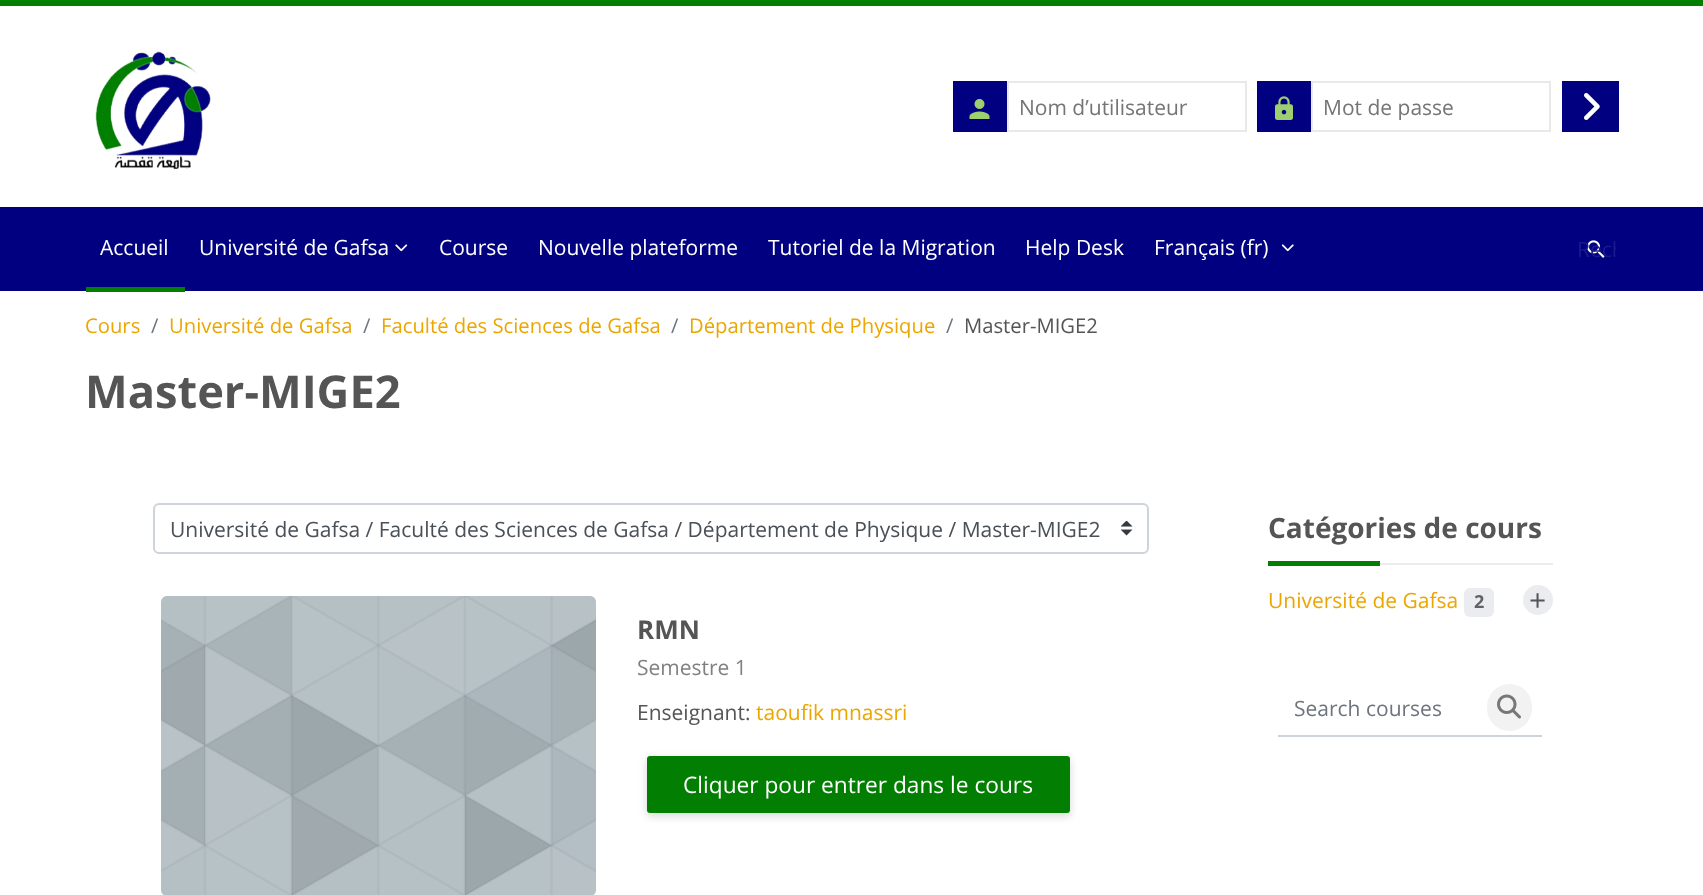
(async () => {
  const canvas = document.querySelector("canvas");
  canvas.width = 1703;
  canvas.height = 895;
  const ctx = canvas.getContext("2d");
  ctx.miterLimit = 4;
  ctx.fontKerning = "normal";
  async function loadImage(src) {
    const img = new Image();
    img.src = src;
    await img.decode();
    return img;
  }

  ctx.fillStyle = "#ffffff";
  ctx.fillRect(0, 0, 1703, 895);
  ctx.fillStyle = "#027f02";
  ctx.fillRect(0, 0, 1703, 6);
  ctx.drawImage(await loadImage("img/1.png"), 95, 51, 116, 118);
  ctx.fillStyle = "#010080";
  ctx.fillRect(953, 81, 54, 51);
  ctx.drawImage(await loadImage("img/2.png"), 969, 99, 21, 20);
  ctx.strokeStyle = "#e9e9e9";
  ctx.lineWidth = 2;
  ctx.strokeRect(1008, 82, 238, 49);
  ctx.fillRect(1257, 81, 54, 51);
  ctx.drawImage(await loadImage("img/3.png"), 1275, 96, 18, 24);
  ctx.strokeRect(1312, 82, 238, 49);
  ctx.fillRect(1562, 81, 57, 51);
  ctx.drawImage(await loadImage("img/4.png"), 1584, 93, 16, 27);
  ctx.fillRect(0, 207, 1703, 84);
  ctx.fillStyle = "#027f02";
  ctx.fillRect(86, 287, 99, 5);
  ctx.drawImage(await loadImage("img/5.png"), 395, 244, 13, 8);
  ctx.drawImage(await loadImage("img/6.png"), 1281, 244, 13, 8);
  ctx.drawImage(await loadImage("img/7.png"), 1587, 240, 18, 18);
  ctx.drawImage(await loadImage("img/8.png"), 1121, 521, 12, 15);
  ctx.beginPath();
  ctx.roundRect(154, 504, 994, 49, 5);
  ctx.strokeStyle = "#ced4da";
  ctx.stroke();
  ctx.drawImage(await loadImage("img/9.png"), 161, 596, 435, 299);
  ctx.fillStyle = "rgba(0, 0, 0, 0.16)";
  ctx.filter = "blur(4px)";
  ctx.beginPath();
  ctx.roundRect(647, 759, 423, 57, 3);
  ctx.fill();
  ctx.filter = "none";
  ctx.fillStyle = "#027f02";
  ctx.beginPath();
  ctx.roundRect(647, 756, 423, 57, 3);
  ctx.fill();
  ctx.fillStyle = "#ebebeb";
  ctx.fillRect(1380, 563, 173, 2);
  ctx.fillStyle = "#027f02";
  ctx.fillRect(1268, 561, 112, 5);
  ctx.fillStyle = "#eaecef";
  ctx.beginPath();
  ctx.roundRect(1464, 588, 30, 29, 6);
  ctx.fill();
  ctx.beginPath();
  ctx.arc(1538, 600, 15, 0, Math.PI * 2);
  ctx.fill();
  ctx.fillStyle = "#ced4da";
  ctx.fillRect(1278, 735, 264, 2);
  ctx.fillStyle = "#f2f2f2";
  ctx.beginPath();
  ctx.roundRect(1487, 684, 45, 47, 22.5);
  ctx.fill();
  ctx.drawImage(await loadImage("img/10.png"), 1497, 694, 24, 25);
  ctx.font = "21px Open Sans";
  ctx.fillStyle = "#757575";
  ctx.fillText("Nom d’utilisateur", 1019, 115);
  ctx.fillText("Mot de passe", 1323, 115);
  ctx.fillStyle = "#ffffff";
  for (const [text, x, y] of [
    ["Accueil", 100, 255],
    ["Université de Gafsa", 199, 255],
    ["Course", 439, 255],
    ["Nouvelle plateforme", 538, 255],
    ["Tutoriel de la Migration", 768, 255],
    ["Help Desk", 1025, 255],
    ["Français (fr)", 1154, 255],
  ]) {
    ctx.fillText(text, x, y);
  }
  ctx.save();
  ctx.beginPath();
  ctx.rect(1577, 234, 39, 29);
  ctx.clip();
  ctx.fillStyle = "#1b1a8d";
  ctx.fillText("Rech", 1577, 257);
  ctx.restore();
  ctx.font = "20.25px Open Sans";
  ctx.fillStyle = "#eba600";
  ctx.fillText("Cours", 85, 333);
  ctx.fillStyle = "#6c757d";
  ctx.fillText("/", 151, 333);
  ctx.fillStyle = "#eba600";
  ctx.fillText("Université de Gafsa", 169, 333);
  ctx.fillStyle = "#6c757d";
  ctx.fillText("/", 363, 333);
  ctx.fillStyle = "#eba600";
  ctx.fillText("Faculté des Sciences de Gafsa", 381, 333);
  ctx.fillStyle = "#6c757d";
  ctx.fillText("/", 671, 333);
  ctx.fillStyle = "#eba600";
  ctx.fillText("Département de Physique", 689, 333);
  ctx.fillStyle = "#6c757d";
  ctx.fillText("/", 946, 333);
  ctx.fillStyle = "#555555";
  ctx.fillText("Master-MIGE2", 964, 333);
  ctx.font = "bold 45.25px Open Sans";
  ctx.fillText("Master-MIGE2", 85, 408);
  ctx.font = "21px Open Sans";
  ctx.fillStyle = "#495057";
  ctx.fillText("Université de Gafsa / Faculté des Sciences de Gafsa / Département de Physique / Master-MIGE2", 170, 537);
  ctx.font = "bold 26px Open Sans";
  ctx.fillStyle = "#555555";
  ctx.fillText("RMN", 637, 639);
  ctx.font = "21px Open Sans";
  ctx.fillStyle = "#808080";
  ctx.fillText("Semestre 1", 637, 675);
  ctx.fillStyle = "#555555";
  ctx.fillText("Enseignant:", 637, 720);
  ctx.fillStyle = "#eba600";
  ctx.fillText("taoufik mnassri", 756, 720);
  ctx.font = "22.7px Open Sans";
  ctx.fillStyle = "#ffffff";
  ctx.fillText("Cliquer pour entrer dans le cours", 683, 793);
  ctx.font = "bold 28px Open Sans";
  ctx.fillStyle = "#555555";
  ctx.fillText("Catégories de cours", 1268, 538);
  ctx.font = "21px Open Sans";
  ctx.fillStyle = "#eba600";
  ctx.fillText("Université de Gafsa", 1268, 608);
  ctx.font = "bold 18px Open Sans";
  ctx.fillStyle = "#626262";
  ctx.fillText("2", 1474, 608);
  ctx.font = "30px Open Sans";
  ctx.fillStyle = "#555555";
  ctx.fillText("+", 1529, 611);
  ctx.font = "21px Open Sans";
  ctx.fillStyle = "#6c757d";
  ctx.fillText("Search courses", 1294, 716);
})();
